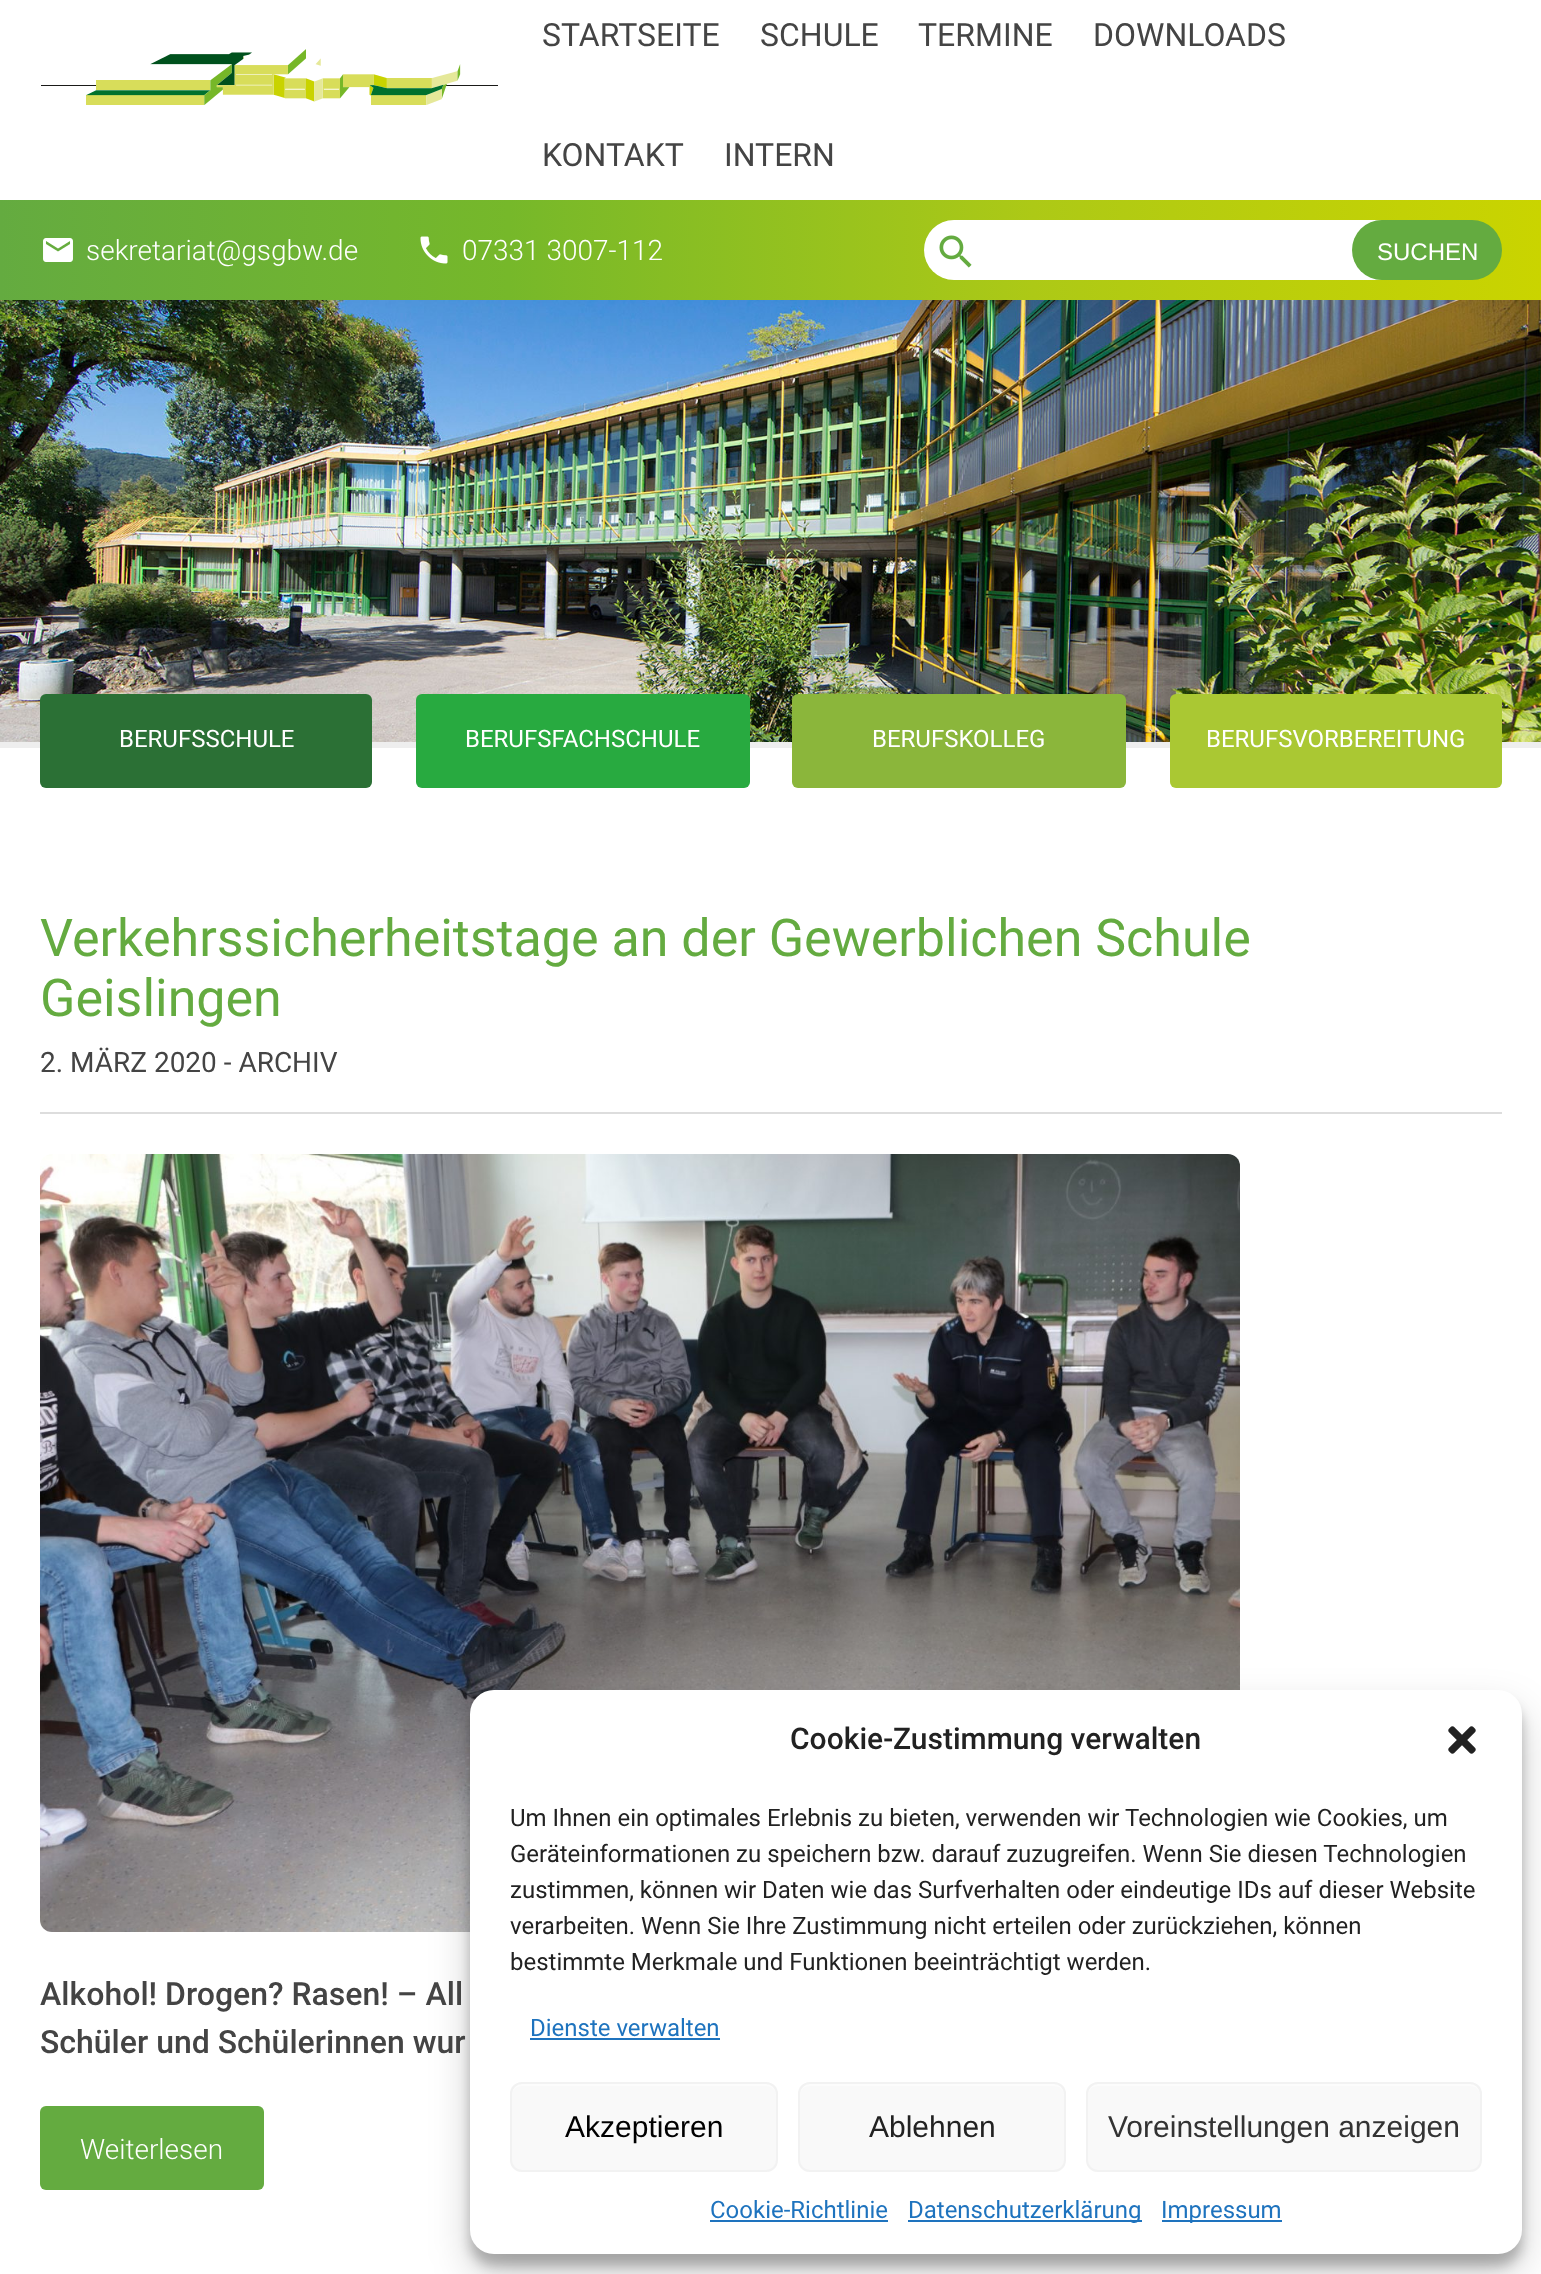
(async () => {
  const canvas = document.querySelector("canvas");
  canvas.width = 1541;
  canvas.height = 2274;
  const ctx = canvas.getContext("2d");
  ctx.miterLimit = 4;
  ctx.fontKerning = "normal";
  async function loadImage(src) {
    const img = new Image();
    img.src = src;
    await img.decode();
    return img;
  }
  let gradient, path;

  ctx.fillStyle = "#ffffff";
  ctx.fillRect(0, 0, 1541, 2274);
  ctx.drawImage(await loadImage("img/1.png"), 41, 49, 457, 56);
  gradient = ctx.createLinearGradient(0, 250, 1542, 250);
  gradient.addColorStop(0, "#64ab40");
  gradient.addColorStop(0.33, "#76b82a");
  gradient.addColorStop(0.67, "#adc916");
  gradient.addColorStop(1, "#cad400");
  ctx.fillStyle = gradient;
  ctx.fillRect(0, 200, 1541, 100);
  ctx.drawImage(await loadImage("img/2.png"), 43, 238, 30, 24);
  ctx.drawImage(await loadImage("img/3.png"), 420, 236, 28, 28);
  ctx.fillStyle = "#ffffff";
  ctx.beginPath();
  ctx.roundRect(924, 220, 482, 60, 30);
  ctx.fill();
  ctx.drawImage(await loadImage("img/4.png"), 939, 235, 33, 33);
  ctx.fillStyle = "#64ab40";
  ctx.beginPath();
  ctx.roundRect(1352, 220, 150, 60, 30);
  ctx.fill();
  ctx.fillStyle = "#eeeeee";
  ctx.fillRect(0, 742, 1541, 6);
  ctx.drawImage(await loadImage("img/5.png"), 0, 300, 1541, 442);
  ctx.fillStyle = "#2b7035";
  ctx.beginPath();
  ctx.roundRect(40, 694, 332, 94, 6);
  ctx.fill();
  ctx.fillStyle = "#28aa40";
  ctx.beginPath();
  ctx.roundRect(416, 694, 334, 94, 6);
  ctx.fill();
  ctx.fillStyle = "#8bb63b";
  ctx.beginPath();
  ctx.roundRect(792, 694, 334, 94, 6);
  ctx.fill();
  ctx.fillStyle = "#aac833";
  ctx.beginPath();
  ctx.roundRect(1170, 694, 332, 94, 6);
  ctx.fill();
  ctx.fillStyle = "#dddddd";
  ctx.fillRect(40, 1112, 1462, 2);
  ctx.drawImage(await loadImage("img/6.png"), 40, 1154, 1200, 778);
  ctx.fillStyle = "#64ab40";
  ctx.beginPath();
  ctx.roundRect(40, 2106, 224, 84, 6);
  ctx.fill();
  ctx.fillStyle = "rgba(0, 0, 0, 0.23)";
  ctx.filter = "blur(6px)";
  ctx.beginPath();
  ctx.roundRect(470, 1702, 1052, 564, 24);
  ctx.fill();
  ctx.filter = "none";
  ctx.fillStyle = "rgba(0, 0, 0, 0.19)";
  ctx.filter = "blur(20px)";
  ctx.beginPath();
  ctx.roundRect(470, 1710, 1052, 564, 24);
  ctx.fill();
  ctx.filter = "none";
  ctx.fillStyle = "#ffffff";
  ctx.beginPath();
  ctx.roundRect(470, 1690, 1052, 564, 24);
  ctx.fill();
  ctx.drawImage(await loadImage("img/7.png"), 1448, 1726, 28, 28);
  ctx.fillStyle = "#1e73be";
  ctx.fillRect(530, 2038, 190, 2);
  ctx.fillStyle = "#f9f9f9";
  ctx.beginPath();
  ctx.roundRect(510, 2082, 268, 90, 12);
  ctx.fill();
  ctx.fillStyle = "#fcfcfc";
  path = new Path2D("M522 2086H766C772 2086 776 2090 776 2096V2094C776 2088 772 2084 766 2084H522C516 2084 512 2088 512 2094V2096C512 2090 516 2086 522 2086Z");
  ctx.fill(path);
  ctx.beginPath();
  ctx.roundRect(511, 2083, 266, 88, 11);
  ctx.strokeStyle = "#f2f2f2";
  ctx.lineWidth = 2;
  ctx.stroke();
  ctx.fillStyle = "#f9f9f9";
  ctx.beginPath();
  ctx.roundRect(798, 2082, 268, 90, 12);
  ctx.fill();
  ctx.fillStyle = "#fcfcfc";
  path = new Path2D("M810 2086H1054C1060 2086 1064 2090 1064 2096V2094C1064 2088 1060 2084 1054 2084H810C804 2084 800 2088 800 2094V2096C800 2090 804 2086 810 2086Z");
  ctx.fill(path);
  ctx.beginPath();
  ctx.roundRect(799, 2083, 266, 88, 11);
  ctx.stroke();
  ctx.fillStyle = "#f9f9f9";
  ctx.beginPath();
  ctx.roundRect(1086, 2082, 396, 90, 12);
  ctx.fill();
  ctx.fillStyle = "#fcfcfc";
  path = new Path2D("M1098 2086H1470C1476 2086 1480 2090 1480 2096V2094C1480 2088 1476 2084 1470 2084H1098C1092 2084 1088 2088 1088 2094V2096C1088 2090 1092 2086 1098 2086Z");
  ctx.fill(path);
  ctx.beginPath();
  ctx.roundRect(1087, 2083, 394, 88, 11);
  ctx.stroke();
  for (const [x, y, w, h, color] of [
    [710, 2220, 178, 2, "#1e73be"],
    [908, 2220, 234, 2, "#1e73be"],
    [1162, 2220, 120, 2, "#1e73be"],
  ]) {
    ctx.fillStyle = color;
    ctx.fillRect(x, y, w, h);
  }
  ctx.font = "32px Roboto";
  ctx.fillStyle = "#444444";
  for (const [text, x, y] of [
    ["STARTSEITE", 542, 46],
    ["SCHULE", 760, 46],
    ["TERMINE", 918, 46],
    ["DOWNLOADS", 1093, 46],
    ["KONTAKT", 542, 166],
    ["INTERN", 724, 166],
  ]) {
    ctx.fillText(text, x, y);
  }
  ctx.font = "300 28px Roboto";
  ctx.fillStyle = "#ffffff";
  ctx.fillText("sekretariat@gsgbw.de", 86, 260);
  ctx.fillText("07331 3007-112", 462, 260);
  ctx.font = "24px Liberation Sans";
  ctx.fillText("SUCHEN", 1377, 260);
  ctx.font = "24px Roboto";
  for (const [text, x, y] of [
    ["BERUFSSCHULE", 119, 747],
    ["BERUFSFACHSCHULE", 465, 747],
    ["BERUFSKOLLEG", 872, 747],
    ["BERUFSVORBEREITUNG", 1206, 747],
  ]) {
    ctx.fillText(text, x, y);
  }
  ctx.font = "52px Roboto";
  ctx.fillStyle = "#64ab40";
  ctx.fillText("Verkehrssicherheitstage an der Gewerblichen Schule", 40, 956);
  ctx.fillText("Geislingen", 40, 1016);
  ctx.font = "28px Roboto";
  ctx.fillStyle = "#444444";
  ctx.fillText("2. MÄRZ 2020 - ARCHIV", 40, 1072);
  ctx.font = "500 32px Roboto";
  ctx.fillText("Alkohol! Drogen? Rasen! – All", 40, 2005);
  ctx.fillText("Schüler und Schülerinnen wur", 40, 2053);
  ctx.font = "300 28px Roboto";
  ctx.fillStyle = "#ffffff";
  ctx.fillText("Weiterlesen", 80, 2159);
  ctx.font = "500 30px Roboto";
  ctx.fillStyle = "#222222";
  ctx.fillText("Cookie-Zustimmung verwalten", 790, 1749);
  ctx.font = "24px Roboto";
  for (const [text, x, y] of [
    ["Um Ihnen ein optimales Erlebnis zu bieten, verwenden wir Technologien wie Cookies, um", 510, 1826],
    ["Geräteinformationen zu speichern bzw. darauf zuzugreifen. Wenn Sie diesen Technologien", 510, 1862],
    ["zustimmen, können wir Daten wie das Surfverhalten oder eindeutige IDs auf dieser Website", 510, 1898],
    ["verarbeiten. Wenn Sie Ihre Zustimmung nicht erteilen oder zurückziehen, können", 510, 1934],
    ["bestimmte Merkmale und Funktionen beeinträchtigt werden.", 510, 1970],
  ]) {
    ctx.fillText(text, x, y);
  }
  ctx.fillStyle = "#1e73be";
  ctx.fillText("Dienste verwalten", 530, 2036);
  ctx.font = "30px Liberation Sans";
  ctx.fillStyle = "#000000";
  ctx.fillText("Akzeptieren", 565, 2137);
  ctx.fillStyle = "#222222";
  ctx.fillText("Ablehnen", 869, 2137);
  ctx.fillStyle = "#333333";
  ctx.fillText("Voreinstellungen anzeigen", 1108, 2137);
  ctx.font = "24px Roboto";
  ctx.fillStyle = "#1e73be";
  for (const [text, x, y] of [
    ["Cookie-Richtlinie", 710, 2218],
    ["Datenschutzerklärung", 908, 2218],
    ["Impressum", 1161, 2218],
  ]) {
    ctx.fillText(text, x, y);
  }
})();
